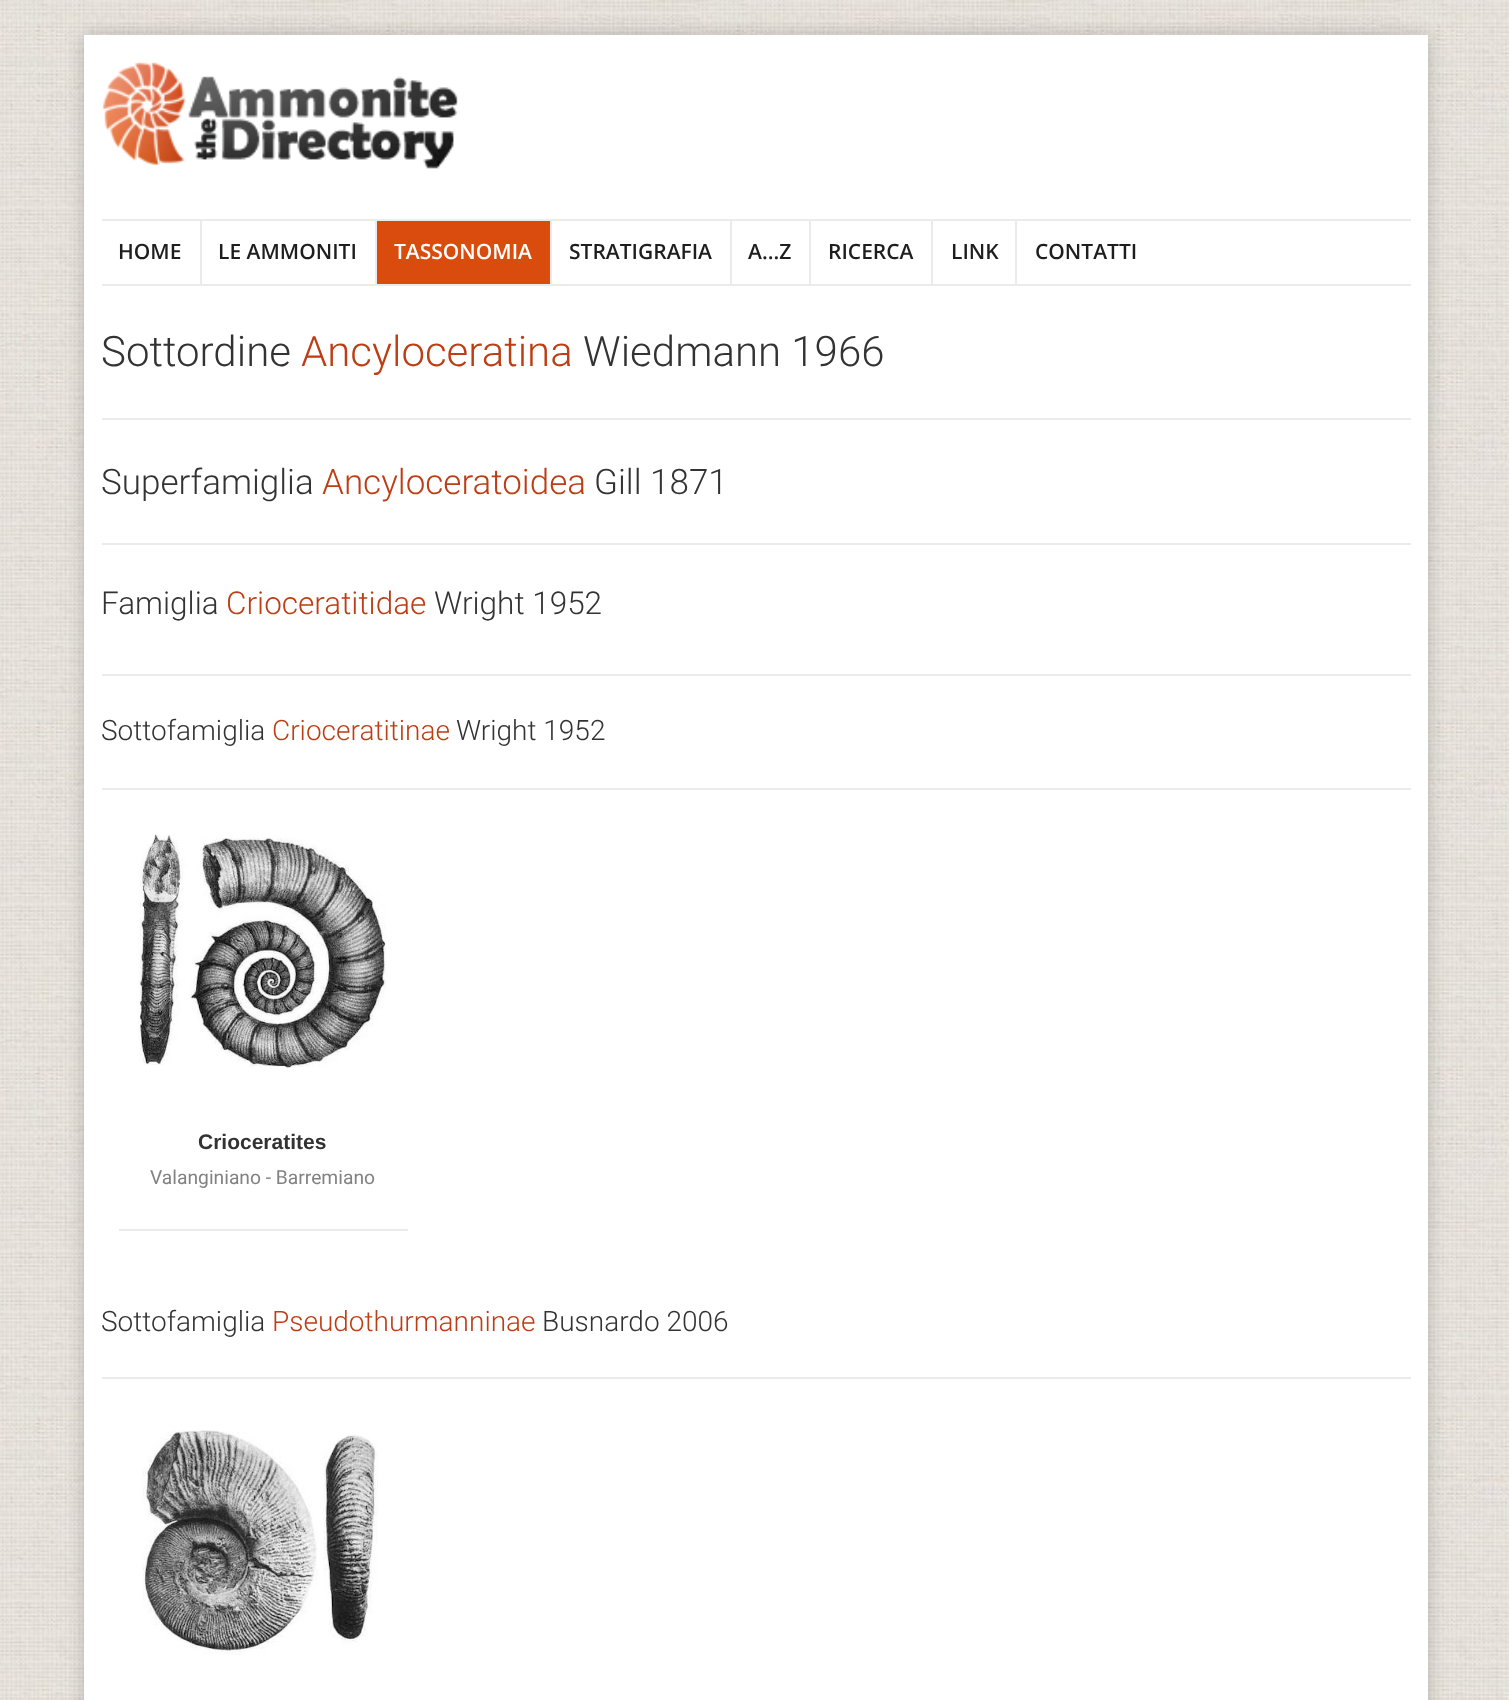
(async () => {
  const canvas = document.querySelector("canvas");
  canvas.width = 1509;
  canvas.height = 1700;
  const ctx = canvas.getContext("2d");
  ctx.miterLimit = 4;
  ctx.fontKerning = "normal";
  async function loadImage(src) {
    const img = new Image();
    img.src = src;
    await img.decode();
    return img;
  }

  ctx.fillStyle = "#ffffff";
  ctx.fillRect(0, 0, 1509, 1700);
  ctx.drawImage(await loadImage("img/1.png"), 0, 0, 1509, 1700);
  ctx.fillStyle = "rgba(0, 0, 0, 0.2)";
  ctx.filter = "blur(9px)";
  ctx.beginPath();
  ctx.rect(84, 35, 1344, 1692);
  ctx.fill();
  ctx.filter = "none";
  ctx.fillStyle = "#ffffff";
  ctx.fillRect(84, 35, 1344, 1665);
  ctx.drawImage(await loadImage("img/2.png"), 102, 62, 356, 107);
  for (const [x, y, w, h, color] of [
    [102, 219, 1309, 2, "#ebebeb"],
    [102, 284, 1309, 2, "#ebebeb"],
    [200, 221, 2, 63, "#ebebeb"],
    [377, 221, 173, 63, "#da4c0e"],
    [375, 221, 2, 63, "#ebebeb"],
    [550, 221, 2, 63, "#ebebeb"],
    [730, 221, 2, 63, "#ebebeb"],
    [809, 221, 2, 63, "#ebebeb"],
    [931, 221, 2, 63, "#ebebeb"],
    [1015, 221, 2, 63, "#ebebeb"],
    [102, 418, 1309, 2, "#ebebeb"],
    [102, 543, 1309, 2, "#ebebeb"],
    [102, 674, 1309, 2, "#ebebeb"],
    [102, 788, 1309, 2, "#ebebeb"],
  ]) {
    ctx.fillStyle = color;
    ctx.fillRect(x, y, w, h);
  }
  ctx.drawImage(await loadImage("img/3.png"), 138, 834, 249, 234);
  ctx.fillRect(119, 1229, 289, 2);
  ctx.fillRect(102, 1377, 1309, 2);
  ctx.drawImage(await loadImage("img/4.png"), 142, 1430, 236, 225);
  ctx.font = "600 21px Open Sans";
  ctx.fillStyle = "#1e1e1e";
  ctx.fillText("HOME", 118, 259);
  ctx.fillText("LE AMMONITI", 218, 259);
  ctx.fillStyle = "#ffffff";
  ctx.fillText("TASSONOMIA", 394, 259);
  ctx.fillStyle = "#1e1e1e";
  for (const [text, x, y] of [
    ["STRATIGRAFIA", 569, 259],
    ["A...Z", 748, 259],
    ["RICERCA", 828, 259],
    ["LINK", 951, 259],
    ["CONTATTI", 1035, 259],
  ]) {
    ctx.fillText(text, x, y);
  }
  ctx.font = "300 42px Roboto";
  ctx.fillStyle = "#333333";
  ctx.fillText("Sottordine", 101, 366);
  ctx.fillStyle = "#bd3d15";
  ctx.fillText("Ancyloceratina", 301, 366);
  ctx.fillStyle = "#333333";
  ctx.fillText("Wiedmann 1966", 583, 366);
  ctx.font = "300 35px Roboto";
  ctx.fillText("Superfamiglia", 101, 494);
  ctx.fillStyle = "#bd3d15";
  ctx.fillText("Ancyloceratoidea", 322, 494);
  ctx.fillStyle = "#333333";
  ctx.fillText("Gill 1871", 594, 494);
  ctx.font = "300 31.5px Roboto";
  ctx.fillText("Famiglia", 101, 614);
  ctx.fillStyle = "#bd3d15";
  ctx.fillText("Crioceratitidae", 226, 614);
  ctx.fillStyle = "#333333";
  ctx.fillText("Wright 1952", 434, 614);
  ctx.font = "300 28px Roboto";
  ctx.fillText("Sottofamiglia", 101, 740);
  ctx.fillStyle = "#bd3d15";
  ctx.fillText("Crioceratitinae", 272, 740);
  ctx.fillStyle = "#333333";
  ctx.fillText("Wright 1952", 456, 740);
  ctx.font = "bold 21px Liberation Sans";
  ctx.fillText("Crioceratites", 198, 1149);
  ctx.font = "19.25px Roboto";
  ctx.fillStyle = "#828282";
  ctx.fillText("Valanginiano - Barremiano", 150, 1184);
  ctx.font = "300 28px Roboto";
  ctx.fillStyle = "#333333";
  ctx.fillText("Sottofamiglia", 101, 1331);
  ctx.fillStyle = "#bd3d15";
  ctx.fillText("Pseudothurmanninae", 272, 1331);
  ctx.fillStyle = "#333333";
  ctx.fillText("Busnardo 2006", 542, 1331);
})();
